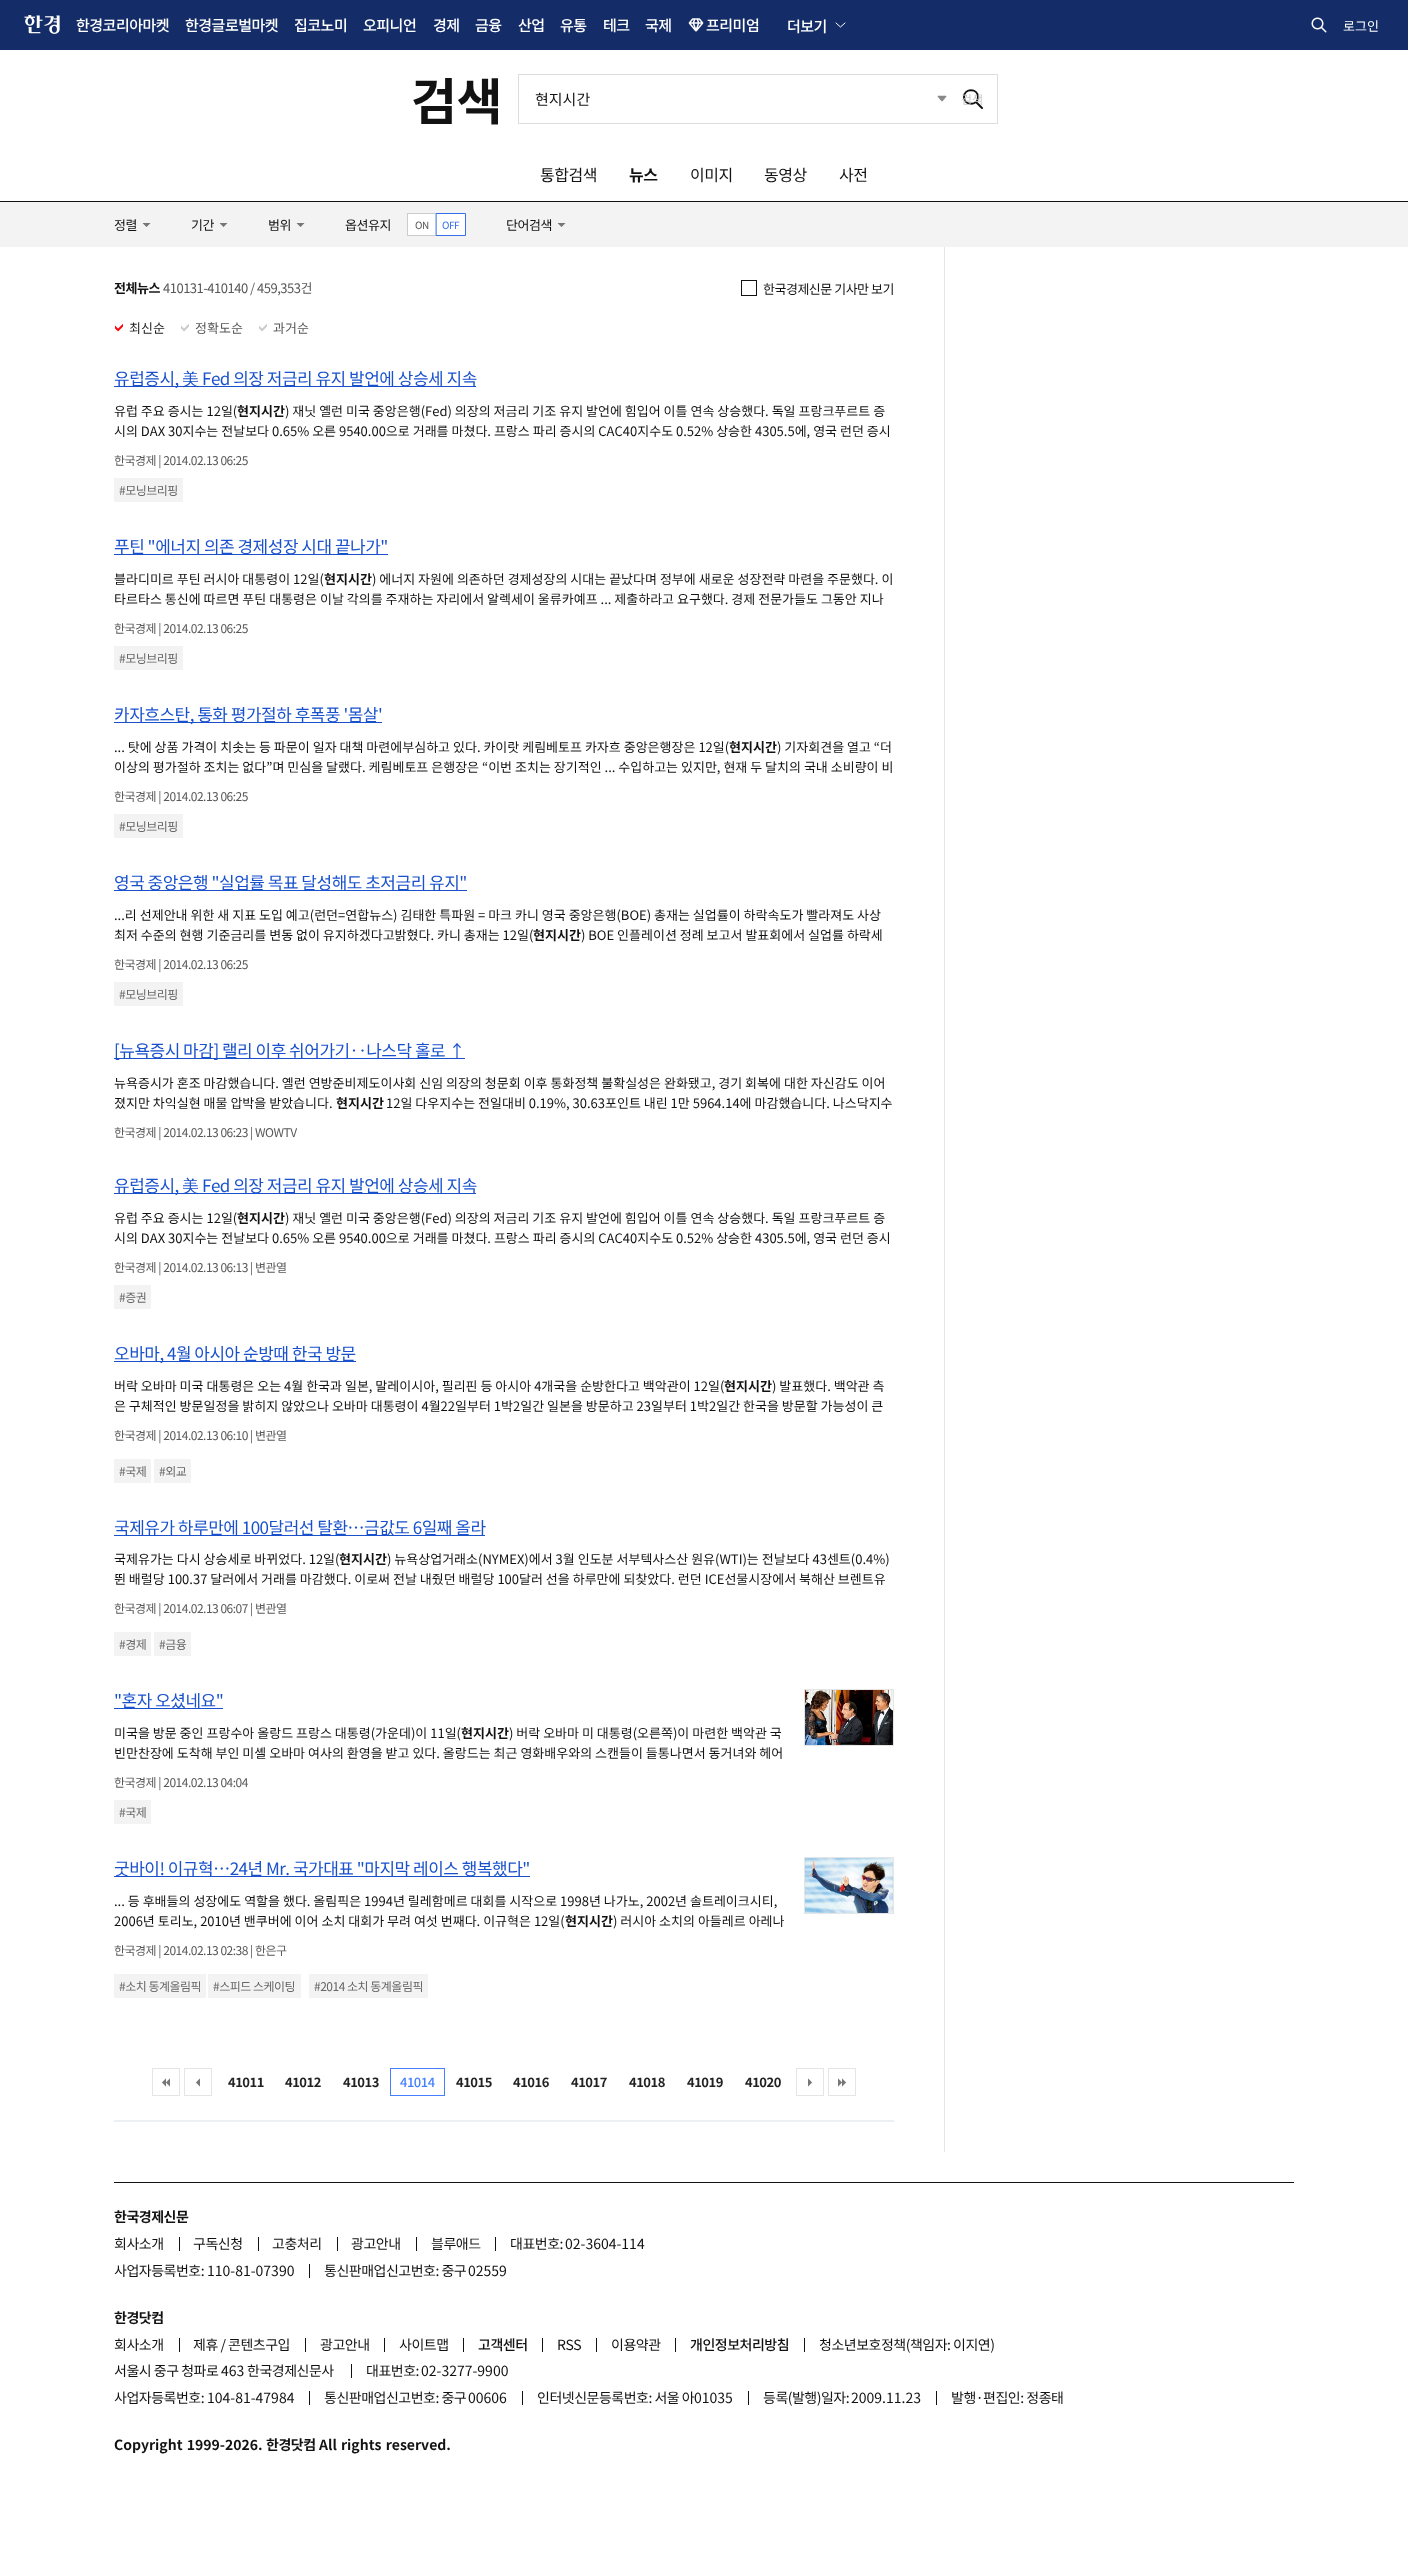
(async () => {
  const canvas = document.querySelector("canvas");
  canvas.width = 1408;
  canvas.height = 2566;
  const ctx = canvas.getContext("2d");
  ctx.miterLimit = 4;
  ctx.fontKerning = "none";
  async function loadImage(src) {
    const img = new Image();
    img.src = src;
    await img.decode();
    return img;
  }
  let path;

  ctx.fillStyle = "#ffffff";
  ctx.fillRect(0, 0, 1408, 2566);
  ctx.fillStyle = "#121212";
  ctx.fillRect(0, 201, 1408, 1);
  ctx.fillStyle = "#142c67";
  ctx.fillRect(0, 0, 1408, 50);
  ctx.drawImage(await loadImage("img/1.png"), 24, 15, 36, 19);
  ctx.drawImage(await loadImage("img/2.png"), 688, 18, 16, 14);
  path = new Path2D("M836 23L840.5 27L845 23");
  ctx.strokeStyle = "#ffffff";
  ctx.lineCap = "round";
  ctx.lineJoin = "round";
  ctx.stroke(path);
  ctx.drawImage(await loadImage("img/3.png"), 1311, 17, 16, 16);
  ctx.strokeStyle = "#dddddd";
  ctx.lineJoin = "miter";
  ctx.strokeRect(518.5, 74.5, 479, 49);
  ctx.drawImage(await loadImage("img/4.png"), 937, 95, 10, 7);
  path = new Path2D("M982 108L976 102M978 97C978 106 964 106 964 97C964 88 978 88 978 97Z");
  ctx.strokeStyle = "#121212";
  ctx.lineWidth = 2;
  ctx.lineJoin = "round";
  ctx.stroke(path);
  ctx.fillStyle = "#f3f3f3";
  ctx.fillRect(0, 202, 1408, 45);
  ctx.drawImage(await loadImage("img/5.png"), 142, 223, 9, 4);
  ctx.drawImage(await loadImage("img/5.png"), 219, 223, 9, 4);
  ctx.drawImage(await loadImage("img/5.png"), 296, 223, 9, 4);
  ctx.fillStyle = "#ffffff";
  ctx.fillRect(407, 213, 29, 23);
  ctx.fillStyle = "#cccccc";
  path = new Path2D("M407 213H436V214H408ZM436 236H407L408 235H436Z");
  ctx.fill(path);
  ctx.fillStyle = "rgba(0, 0, 0, 0.2)";
  path = new Path2D("M407 236V213L408 214V235Z");
  ctx.fill(path);
  ctx.fillStyle = "#ffffff";
  ctx.beginPath();
  ctx.rect(436.5, 213.5, 29, 22);
  ctx.fill();
  ctx.strokeStyle = "#376feb";
  ctx.lineWidth = 1;
  ctx.lineJoin = "miter";
  ctx.stroke();
  ctx.drawImage(await loadImage("img/5.png"), 557, 223, 9, 4);
  ctx.fillStyle = "#e5e5e5";
  ctx.fillRect(944, 247, 1, 1905);
  ctx.strokeStyle = "#121212";
  ctx.strokeRect(741.5, 280.5, 15, 15);
  ctx.drawImage(await loadImage("img/6.png"), 115, 323, 8, 9);
  ctx.drawImage(await loadImage("img/7.png"), 181, 324, 8, 8);
  ctx.drawImage(await loadImage("img/7.png"), 259, 324, 8, 8);
  for (const [x, y, w, h, color] of [
    [114, 386, 362, 1, "#1951cc"],
    [114, 478, 69, 24, "#f3f3f3"],
    [114, 554, 274, 1, "#1951cc"],
    [114, 646, 69, 24, "#f3f3f3"],
    [114, 722, 268, 1, "#1951cc"],
    [114, 814, 69, 24, "#f3f3f3"],
    [114, 890, 353, 1, "#1951cc"],
    [114, 982, 69, 24, "#f3f3f3"],
    [114, 1058, 351, 1, "#1951cc"],
    [114, 1193, 362, 1, "#1951cc"],
    [114, 1285, 37, 24, "#f3f3f3"],
    [114, 1361, 242, 1, "#1951cc"],
    [114, 1459, 37, 24, "#f3f3f3"],
    [154, 1459, 37, 24, "#f3f3f3"],
    [114, 1535, 371, 1, "#1951cc"],
    [114, 1632, 37, 24, "#f3f3f3"],
    [154, 1632, 37, 24, "#f3f3f3"],
    [114, 1708, 109, 1, "#1951cc"],
  ]) {
    ctx.fillStyle = color;
    ctx.fillRect(x, y, w, h);
  }
  ctx.strokeStyle = "#e5e5e5";
  ctx.strokeRect(804.5, 1689.5, 89, 56);
  ctx.drawImage(await loadImage("img/8.png"), 805, 1690, 88, 55);
  ctx.fillStyle = "#f3f3f3";
  ctx.fillRect(114, 1800, 37, 24);
  ctx.fillStyle = "#1951cc";
  ctx.fillRect(114, 1876, 416, 1);
  ctx.strokeRect(804.5, 1857.5, 89, 56);
  ctx.drawImage(await loadImage("img/9.png"), 805, 1858, 88, 55);
  for (const [x, y, w, h, color] of [
    [114, 1974, 92, 24, "#f3f3f3"],
    [208, 1974, 93, 24, "#f3f3f3"],
    [309, 1974, 119, 24, "#f3f3f3"],
  ]) {
    ctx.fillStyle = color;
    ctx.fillRect(x, y, w, h);
  }
  ctx.drawImage(await loadImage("img/10.png"), 162, 2078, 8, 9);
  ctx.strokeRect(152.5, 2068.5, 27, 27);
  ctx.drawImage(await loadImage("img/11.png"), 196, 2078, 4, 9);
  ctx.strokeRect(184.5, 2068.5, 27, 27);
  ctx.strokeStyle = "#457fff";
  ctx.strokeRect(390.5, 2068.5, 54, 27);
  ctx.drawImage(await loadImage("img/12.png"), 808, 2078, 4, 9);
  ctx.strokeStyle = "#e5e5e5";
  ctx.strokeRect(796.5, 2068.5, 27, 27);
  ctx.drawImage(await loadImage("img/13.png"), 838, 2078, 8, 9);
  ctx.strokeRect(828.5, 2068.5, 27, 27);
  for (const [x, y, w, h, color] of [
    [114, 2120, 780, 2, "#ecf0f2"],
    [114, 2182, 1180, 1, "#121212"],
    [179, 2237, 1, 14, "#121212"],
    [258, 2237, 1, 14, "#121212"],
    [337, 2237, 1, 14, "#121212"],
    [416, 2237, 1, 14, "#121212"],
    [495, 2237, 1, 14, "#121212"],
    [309, 2264, 1, 14, "#121212"],
    [179, 2338, 1, 14, "#121212"],
    [305, 2338, 1, 14, "#121212"],
    [384, 2338, 1, 14, "#121212"],
    [463, 2338, 1, 14, "#121212"],
    [542, 2338, 1, 14, "#121212"],
    [596, 2338, 1, 14, "#121212"],
    [675, 2338, 1, 14, "#121212"],
    [804, 2338, 1, 14, "#121212"],
    [351, 2364, 1, 14, "#121212"],
    [309, 2391, 1, 14, "#121212"],
    [522, 2391, 1, 14, "#121212"],
    [748, 2391, 1, 14, "#121212"],
    [936, 2391, 1, 14, "#121212"],
  ]) {
    ctx.fillStyle = color;
    ctx.fillRect(x, y, w, h);
  }
  ctx.letterSpacing = "-0.5px";
  ctx.font = "500 15px Noto Sans KR";
  ctx.fillStyle = "#ffffff";
  for (const [text, x, y] of [
    ["한경코리아마켓", 76, 31],
    ["한경글로벌마켓", 185, 31],
    ["집코노미", 294, 31],
    ["오피니언", 363, 31],
    ["경제", 433, 31],
    ["금융", 475, 31],
    ["산업", 518, 31],
    ["유통", 560, 31],
    ["테크", 603, 31],
    ["국제", 645, 31],
    ["프리미엄", 706, 31],
    ["더보기", 787, 32],
  ]) {
    ctx.fillText(text, x, y);
  }
  ctx.letterSpacing = "0px";
  ctx.font = "13px Noto Sans KR";
  ctx.fillText("로그인", 1343, 31);
  ctx.letterSpacing = "-0.5px";
  ctx.font = "bold 50px Noto Sans KR";
  ctx.fillStyle = "#121212";
  ctx.fillText("검색", 411, 120);
  ctx.letterSpacing = "0px";
  ctx.font = "15px Noto Sans KR";
  ctx.fillText("현지시간", 535, 105);
  ctx.font = "12px Noto Sans KR";
  ctx.fillStyle = "#c8c8c8";
  ctx.fillText("검색", 961, 104);
  ctx.letterSpacing = "-0.5px";
  ctx.font = "16px Noto Sans KR";
  ctx.fillStyle = "#121212";
  ctx.fillText("통합검색", 540, 181);
  ctx.font = "bold 16px Noto Sans KR";
  ctx.fillText("뉴스", 629, 181);
  ctx.font = "16px Noto Sans KR";
  for (const [text, x, y] of [
    ["이미지", 690, 181],
    ["동영상", 764, 181],
    ["사전", 839, 181],
  ]) {
    ctx.fillText(text, x, y);
  }
  ctx.font = "13px Noto Sans KR";
  for (const [text, x, y] of [
    ["정렬", 114, 230],
    ["기간", 191, 230],
    ["범위", 268, 230],
    ["옵션유지", 345, 230],
  ]) {
    ctx.fillText(text, x, y);
  }
  ctx.font = "10px Noto Sans KR";
  ctx.fillStyle = "#585858";
  ctx.fillText("ON", 415, 229);
  ctx.fillStyle = "#376feb";
  ctx.fillText("OFF", 442, 229);
  ctx.font = "13px Noto Sans KR";
  ctx.fillStyle = "#121212";
  ctx.fillText("단어검색", 506, 230);
  ctx.font = "bold 13px Noto Sans KR";
  ctx.fillText("전체뉴스", 114, 293);
  ctx.font = "13px Noto Sans KR";
  ctx.fillStyle = "#585858";
  ctx.fillText("410131-410140 / 459,353건", 163, 293);
  ctx.fillStyle = "#121212";
  ctx.fillText("한국경제신문 기사만 보기", 763, 294);
  ctx.letterSpacing = "0px";
  ctx.fillStyle = "#222222";
  ctx.fillText("최신순", 129, 333);
  ctx.fillStyle = "#585858";
  ctx.fillText("정확도순", 195, 333);
  ctx.fillText("과거순", 273, 333);
  ctx.letterSpacing = "-0.5px";
  ctx.font = "17px Noto Sans KR";
  ctx.fillStyle = "#1951cc";
  ctx.fillText("유럽증시,", 114, 385);
  ctx.font = "500 17px WenQuanYi Zen Hei";
  ctx.fillText("美", 182, 385);
  ctx.font = "17px Noto Sans KR";
  ctx.fillText("Fed 의장 저금리 유지 발언에 상승세 지속", 202, 385);
  ctx.letterSpacing = "0px";
  ctx.font = "13px Noto Sans KR";
  ctx.fillStyle = "#121212";
  ctx.fillText("유럽 주요 증시는 12일(", 114, 416);
  ctx.font = "bold 13px Noto Sans KR";
  ctx.fillText("현지시간", 237, 416);
  ctx.font = "13px Noto Sans KR";
  ctx.fillText(") 재닛 옐런 미국 중앙은행(Fed) 의장의 저금리 기조 유지 발언에 힘입어 이틀 연속 상승했다. 독일 프랑크푸르트 증", 285, 416);
  ctx.fillText("시의 DAX 30지수는 전날보다 0.65% 오른 9540.00으로 거래를 마쳤다. 프랑스 파리 증시의 CAC40지수도 0.52% 상승한 4305.5에, 영국 런던 증시", 114, 436);
  ctx.letterSpacing = "-0.5px";
  ctx.font = "12px Noto Sans KR";
  ctx.fillStyle = "#585858";
  ctx.fillText("한국경제 | 2014.02.13 06:25", 114, 465);
  ctx.fillStyle = "#666666";
  ctx.fillText("#모닝브리핑", 119, 495);
  ctx.font = "17px Noto Sans KR";
  ctx.fillStyle = "#1951cc";
  ctx.fillText("푸틴 \"에너지 의존 경제성장 시대 끝나가\"", 114, 553);
  ctx.letterSpacing = "0px";
  ctx.font = "13px Noto Sans KR";
  ctx.fillStyle = "#121212";
  ctx.fillText("블라디미르 푸틴 러시아 대통령이 12일(", 114, 584);
  ctx.font = "bold 13px Noto Sans KR";
  ctx.fillText("현지시간", 324, 584);
  ctx.font = "13px Noto Sans KR";
  ctx.fillText(") 에너지 자원에 의존하던 경제성장의 시대는 끝났다며 정부에 새로운 성장전략 마련을 주문했다. 이", 372, 584);
  ctx.fillText("타르타스 통신에 따르면 푸틴 대통령은 이날 각의를 주재하는 자리에서 알렉세이 울류카예프 ... 제출하라고 요구했다. 경제 전문가들도 그동안 지나", 114, 604);
  ctx.letterSpacing = "-0.5px";
  ctx.font = "12px Noto Sans KR";
  ctx.fillStyle = "#585858";
  ctx.fillText("한국경제 | 2014.02.13 06:25", 114, 633);
  ctx.fillStyle = "#666666";
  ctx.fillText("#모닝브리핑", 119, 663);
  ctx.font = "17px Noto Sans KR";
  ctx.fillStyle = "#1951cc";
  ctx.fillText("카자흐스탄, 통화 평가절하 후폭풍 '몸살'", 114, 721);
  ctx.letterSpacing = "0px";
  ctx.font = "13px Noto Sans KR";
  ctx.fillStyle = "#121212";
  ctx.fillText("... 탓에 상품 가격이 치솟는 등 파문이 일자 대책 마련에부심하고 있다. 카이랏 케림베토프 카자흐 중앙은행장은 12일(", 114, 752);
  ctx.font = "bold 13px Noto Sans KR";
  ctx.fillText("현지시간", 729, 752);
  ctx.font = "13px Noto Sans KR";
  ctx.fillText(") 기자회견을 열고 “더", 777, 752);
  ctx.fillText("이상의 평가절하 조치는 없다”며 민심을 달랬다. 케림베토프 은행장은 “이번 조치는 장기적인 ... 수입하고는 있지만, 현재 두 달치의 국내 소비량이 비", 114, 772);
  ctx.letterSpacing = "-0.5px";
  ctx.font = "12px Noto Sans KR";
  ctx.fillStyle = "#585858";
  ctx.fillText("한국경제 | 2014.02.13 06:25", 114, 801);
  ctx.fillStyle = "#666666";
  ctx.fillText("#모닝브리핑", 119, 831);
  ctx.font = "17px Noto Sans KR";
  ctx.fillStyle = "#1951cc";
  ctx.fillText("영국 중앙은행 \"실업률 목표 달성해도 초저금리 유지\"", 114, 889);
  ctx.letterSpacing = "0px";
  ctx.font = "13px Noto Sans KR";
  ctx.fillStyle = "#121212";
  ctx.fillText("...리 선제안내 위한 새 지표 도입 예고(런던=연합뉴스) 김태한 특파원 = 마크 카니 영국 중앙은행(BOE) 총재는 실업률이 하락속도가 빨라져도 사상", 114, 920);
  ctx.fillText("최저 수준의 현행 기준금리를 변동 없이 유지하겠다고밝혔다. 카니 총재는 12일(", 114, 940);
  ctx.font = "bold 13px Noto Sans KR";
  ctx.fillText("현지시간", 533, 940);
  ctx.font = "13px Noto Sans KR";
  ctx.fillText(") BOE 인플레이션 정례 보고서 발표회에서 실업률 하락세", 581, 940);
  ctx.letterSpacing = "-0.5px";
  ctx.font = "12px Noto Sans KR";
  ctx.fillStyle = "#585858";
  ctx.fillText("한국경제 | 2014.02.13 06:25", 114, 969);
  ctx.fillStyle = "#666666";
  ctx.fillText("#모닝브리핑", 119, 999);
  ctx.font = "17px Noto Sans KR";
  ctx.fillStyle = "#1951cc";
  ctx.fillText("[뉴욕증시 마감] 랠리 이후 쉬어가기‥나스닥 홀로 ↑", 114, 1057);
  ctx.letterSpacing = "0px";
  ctx.font = "13px Noto Sans KR";
  ctx.fillStyle = "#121212";
  ctx.fillText("뉴욕증시가 혼조 마감했습니다. 옐런 연방준비제도이사회 신임 의장의 청문회 이후 통화정책 불확실성은 완화됐고, 경기 회복에 대한 자신감도 이어", 114, 1088);
  ctx.fillText("졌지만 차익실현 매물 압박을 받았습니다.", 114, 1108);
  ctx.font = "bold 13px Noto Sans KR";
  ctx.fillText("현지시간", 336, 1108);
  ctx.font = "13px Noto Sans KR";
  ctx.fillText("12일 다우지수는 전일대비 0.19%, 30.63포인트 내린 1만 5964.14에 마감했습니다. 나스닥지수", 386, 1108);
  ctx.letterSpacing = "-0.5px";
  ctx.font = "12px Noto Sans KR";
  ctx.fillStyle = "#585858";
  ctx.fillText("한국경제 | 2014.02.13 06:23 | WOWTV", 114, 1137);
  ctx.font = "17px Noto Sans KR";
  ctx.fillStyle = "#1951cc";
  ctx.fillText("유럽증시,", 114, 1192);
  ctx.font = "500 17px WenQuanYi Zen Hei";
  ctx.fillText("美", 182, 1192);
  ctx.font = "17px Noto Sans KR";
  ctx.fillText("Fed 의장 저금리 유지 발언에 상승세 지속", 202, 1192);
  ctx.letterSpacing = "0px";
  ctx.font = "13px Noto Sans KR";
  ctx.fillStyle = "#121212";
  ctx.fillText("유럽 주요 증시는 12일(", 114, 1223);
  ctx.font = "bold 13px Noto Sans KR";
  ctx.fillText("현지시간", 237, 1223);
  ctx.font = "13px Noto Sans KR";
  ctx.fillText(") 재닛 옐런 미국 중앙은행(Fed) 의장의 저금리 기조 유지 발언에 힘입어 이틀 연속 상승했다. 독일 프랑크푸르트 증", 285, 1223);
  ctx.fillText("시의 DAX 30지수는 전날보다 0.65% 오른 9540.00으로 거래를 마쳤다. 프랑스 파리 증시의 CAC40지수도 0.52% 상승한 4305.5에, 영국 런던 증시", 114, 1243);
  ctx.letterSpacing = "-0.5px";
  ctx.font = "12px Noto Sans KR";
  ctx.fillStyle = "#585858";
  ctx.fillText("한국경제 | 2014.02.13 06:13 | 변관열", 114, 1272);
  ctx.fillStyle = "#666666";
  ctx.fillText("#증권", 119, 1302);
  ctx.font = "17px Noto Sans KR";
  ctx.fillStyle = "#1951cc";
  ctx.fillText("오바마, 4월 아시아 순방때 한국 방문", 114, 1360);
  ctx.letterSpacing = "0px";
  ctx.font = "13px Noto Sans KR";
  ctx.fillStyle = "#121212";
  ctx.fillText("버락 오바마 미국 대통령은 오는 4월 한국과 일본, 말레이시아, 필리핀 등 아시아 4개국을 순방한다고 백악관이 12일(", 114, 1391);
  ctx.font = "bold 13px Noto Sans KR";
  ctx.fillText("현지시간", 724, 1391);
  ctx.font = "13px Noto Sans KR";
  ctx.fillText(") 발표했다. 백악관 측", 772, 1391);
  ctx.fillText("은 구체적인 방문일정을 밝히지 않았으나 오바마 대통령이 4월22일부터 1박2일간 일본을 방문하고 23일부터 1박2일간 한국을 방문할 가능성이 큰", 114, 1411);
  ctx.letterSpacing = "-0.5px";
  ctx.font = "12px Noto Sans KR";
  ctx.fillStyle = "#585858";
  ctx.fillText("한국경제 | 2014.02.13 06:10 | 변관열", 114, 1440);
  ctx.fillStyle = "#666666";
  ctx.fillText("#국제", 119, 1476);
  ctx.fillText("#외교", 159, 1476);
  ctx.font = "17px Noto Sans KR";
  ctx.fillStyle = "#1951cc";
  ctx.fillText("국제유가 하루만에 100달러선 탈환…금값도 6일째 올라", 114, 1534);
  ctx.letterSpacing = "0px";
  ctx.font = "13px Noto Sans KR";
  ctx.fillStyle = "#121212";
  ctx.fillText("국제유가는 다시 상승세로 바뀌었다. 12일(", 114, 1564);
  ctx.font = "bold 13px Noto Sans KR";
  ctx.fillText("현지시간", 339, 1564);
  ctx.font = "13px Noto Sans KR";
  ctx.fillText(") 뉴욕상업거래소(NYMEX)에서 3월 인도분 서부텍사스산 원유(WTI)는 전날보다 43센트(0.4%)", 387, 1564);
  ctx.fillText("뛴 배럴당 100.37 달러에서 거래를 마감했다. 이로써 전날 내줬던 배럴당 100달러 선을 하루만에 되찾았다. 런던 ICE선물시장에서 북해산 브렌트유", 114, 1584);
  ctx.letterSpacing = "-0.5px";
  ctx.font = "12px Noto Sans KR";
  ctx.fillStyle = "#585858";
  ctx.fillText("한국경제 | 2014.02.13 06:07 | 변관열", 114, 1613);
  ctx.fillStyle = "#666666";
  ctx.fillText("#경제", 119, 1649);
  ctx.fillText("#금융", 159, 1649);
  ctx.font = "17px Noto Sans KR";
  ctx.fillStyle = "#1951cc";
  ctx.fillText("\"혼자 오셨네요\"", 114, 1707);
  ctx.letterSpacing = "0px";
  ctx.font = "13px Noto Sans KR";
  ctx.fillStyle = "#121212";
  ctx.fillText("미국을 방문 중인 프랑수아 올랑드 프랑스 대통령(가운데)이 11일(", 114, 1738);
  ctx.font = "bold 13px Noto Sans KR";
  ctx.fillText("현지시간", 461, 1738);
  ctx.font = "13px Noto Sans KR";
  ctx.fillText(") 버락 오바마 미 대통령(오른쪽)이 마련한 백악관 국", 509, 1738);
  ctx.fillText("빈만찬장에 도착해 부인 미셸 오바마 여사의 환영을 받고 있다. 올랑드는 최근 영화배우와의 스캔들이 들통나면서 동거녀와 헤어", 114, 1758);
  ctx.letterSpacing = "-0.5px";
  ctx.font = "12px Noto Sans KR";
  ctx.fillStyle = "#585858";
  ctx.fillText("한국경제 | 2014.02.13 04:04", 114, 1787);
  ctx.fillStyle = "#666666";
  ctx.fillText("#국제", 119, 1817);
  ctx.font = "17px Noto Sans KR";
  ctx.fillStyle = "#1951cc";
  ctx.fillText("굿바이! 이규혁…24년 Mr. 국가대표 \"마지막 레이스 행복했다\"", 114, 1875);
  ctx.letterSpacing = "0px";
  ctx.font = "13px Noto Sans KR";
  ctx.fillStyle = "#121212";
  ctx.fillText("... 등 후배들의 성장에도 역할을 했다. 올림픽은 1994년 릴레함메르 대회를 시작으로 1998년 나가노, 2002년 솔트레이크시티,", 114, 1906);
  ctx.fillText("2006년 토리노, 2010년 밴쿠버에 이어 소치 대회가 무려 여섯 번째다. 이규혁은 12일(", 114, 1926);
  ctx.font = "bold 13px Noto Sans KR";
  ctx.fillText("현지시간", 565, 1926);
  ctx.font = "13px Noto Sans KR";
  ctx.fillText(") 러시아 소치의 아들레르 아레나", 613, 1926);
  ctx.letterSpacing = "-0.5px";
  ctx.font = "12px Noto Sans KR";
  ctx.fillStyle = "#585858";
  ctx.fillText("한국경제 | 2014.02.13 02:38 | 한은구", 114, 1955);
  ctx.fillStyle = "#666666";
  for (const [text, x, y] of [
    ["#소치 동계올림픽", 119, 1991],
    ["#스피드 스케이팅", 213, 1991],
    ["#2014 소치 동계올림픽", 314, 1991],
  ]) {
    ctx.fillText(text, x, y);
  }
  ctx.font = "bold 13px Noto Sans KR";
  ctx.fillStyle = "#222222";
  for (const [text, x, y] of [
    ["41011", 228, 2087],
    ["41012", 285, 2087],
    ["41013", 343, 2087],
  ]) {
    ctx.fillText(text, x, y);
  }
  ctx.font = "500 13px Noto Sans KR";
  ctx.fillStyle = "#457fff";
  ctx.fillText("41014", 400, 2087);
  ctx.font = "bold 13px Noto Sans KR";
  ctx.fillStyle = "#222222";
  for (const [text, x, y] of [
    ["41015", 456, 2087],
    ["41016", 513, 2087],
    ["41017", 571, 2087],
    ["41018", 629, 2087],
    ["41019", 687, 2087],
    ["41020", 745, 2087],
  ]) {
    ctx.fillText(text, x, y);
  }
  ctx.font = "bold 14px Noto Sans KR";
  ctx.fillStyle = "#121212";
  ctx.fillText("한국경제신문", 114, 2222);
  ctx.font = "14px Noto Sans KR";
  for (const [text, x, y] of [
    ["회사소개", 114, 2249],
    ["구독신청", 193, 2249],
    ["고충처리", 272, 2249],
    ["광고안내", 351, 2249],
    ["블루애드", 431, 2249],
    ["대표번호:", 510, 2249],
  ]) {
    ctx.fillText(text, x, y);
  }
  ctx.letterSpacing = "0px";
  ctx.fillText("02-3604-114", 565, 2249);
  ctx.letterSpacing = "-0.5px";
  ctx.fillText("사업자등록번호:", 114, 2276);
  ctx.letterSpacing = "0px";
  ctx.fillText("110-81-07390", 207, 2276);
  ctx.letterSpacing = "-0.5px";
  ctx.fillText("통신판매업신고번호: 중구", 324, 2276);
  ctx.letterSpacing = "0px";
  ctx.fillText("02559", 468, 2276);
  ctx.letterSpacing = "-0.5px";
  ctx.font = "bold 14px Noto Sans KR";
  ctx.fillText("한경닷컴", 114, 2323);
  ctx.font = "14px Noto Sans KR";
  for (const [text, x, y] of [
    ["회사소개", 114, 2350],
    ["제휴 / 콘텐츠구입", 193, 2350],
    ["광고안내", 320, 2350],
    ["사이트맵", 399, 2350],
  ]) {
    ctx.fillText(text, x, y);
  }
  ctx.font = "500 14px Noto Sans KR";
  ctx.fillText("고객센터", 478, 2350);
  ctx.font = "14px Noto Sans KR";
  ctx.fillText("RSS", 557, 2350);
  ctx.fillText("이용약관", 611, 2350);
  ctx.font = "500 14px Noto Sans KR";
  ctx.fillText("개인정보처리방침", 690, 2350);
  ctx.font = "14px Noto Sans KR";
  ctx.fillText("청소년보호정책(책임자: 이지연)", 819, 2350);
  ctx.fillText("서울시 중구 청파로", 114, 2376);
  ctx.letterSpacing = "0px";
  ctx.fillText("463", 221, 2376);
  ctx.letterSpacing = "-0.5px";
  ctx.fillText("한국경제신문사", 247, 2376);
  ctx.fillText("대표번호:", 366, 2376);
  ctx.letterSpacing = "0px";
  ctx.fillText("02-3277-9900", 421, 2376);
  ctx.letterSpacing = "-0.5px";
  ctx.fillText("사업자등록번호:", 114, 2403);
  ctx.letterSpacing = "0px";
  ctx.fillText("104-81-47984", 207, 2403);
  ctx.letterSpacing = "-0.5px";
  ctx.fillText("통신판매업신고번호: 중구", 324, 2403);
  ctx.letterSpacing = "0px";
  ctx.fillText("00606", 468, 2403);
  ctx.letterSpacing = "-0.5px";
  ctx.fillText("인터넷신문등록번호: 서울 아", 537, 2403);
  ctx.letterSpacing = "0px";
  ctx.fillText("01035", 694, 2403);
  ctx.letterSpacing = "-0.5px";
  ctx.fillText("등록(발행)일자:", 763, 2403);
  ctx.letterSpacing = "0px";
  ctx.fillText("2009.11.23", 851, 2403);
  ctx.letterSpacing = "-0.5px";
  ctx.fillText("발행·편집인: 정종태", 951, 2403);
  ctx.letterSpacing = "0px";
  ctx.wordSpacing = "1px";
  ctx.font = "bold 14px Noto Sans KR";
  ctx.fillText("Copyright 1999-2026.", 114, 2450);
  ctx.letterSpacing = "-0.5px";
  ctx.wordSpacing = "0px";
  ctx.fillText("한경닷컴", 266, 2450);
  ctx.letterSpacing = "0px";
  ctx.wordSpacing = "1px";
  ctx.fillText("All rights reserved.", 319, 2450);
})();
